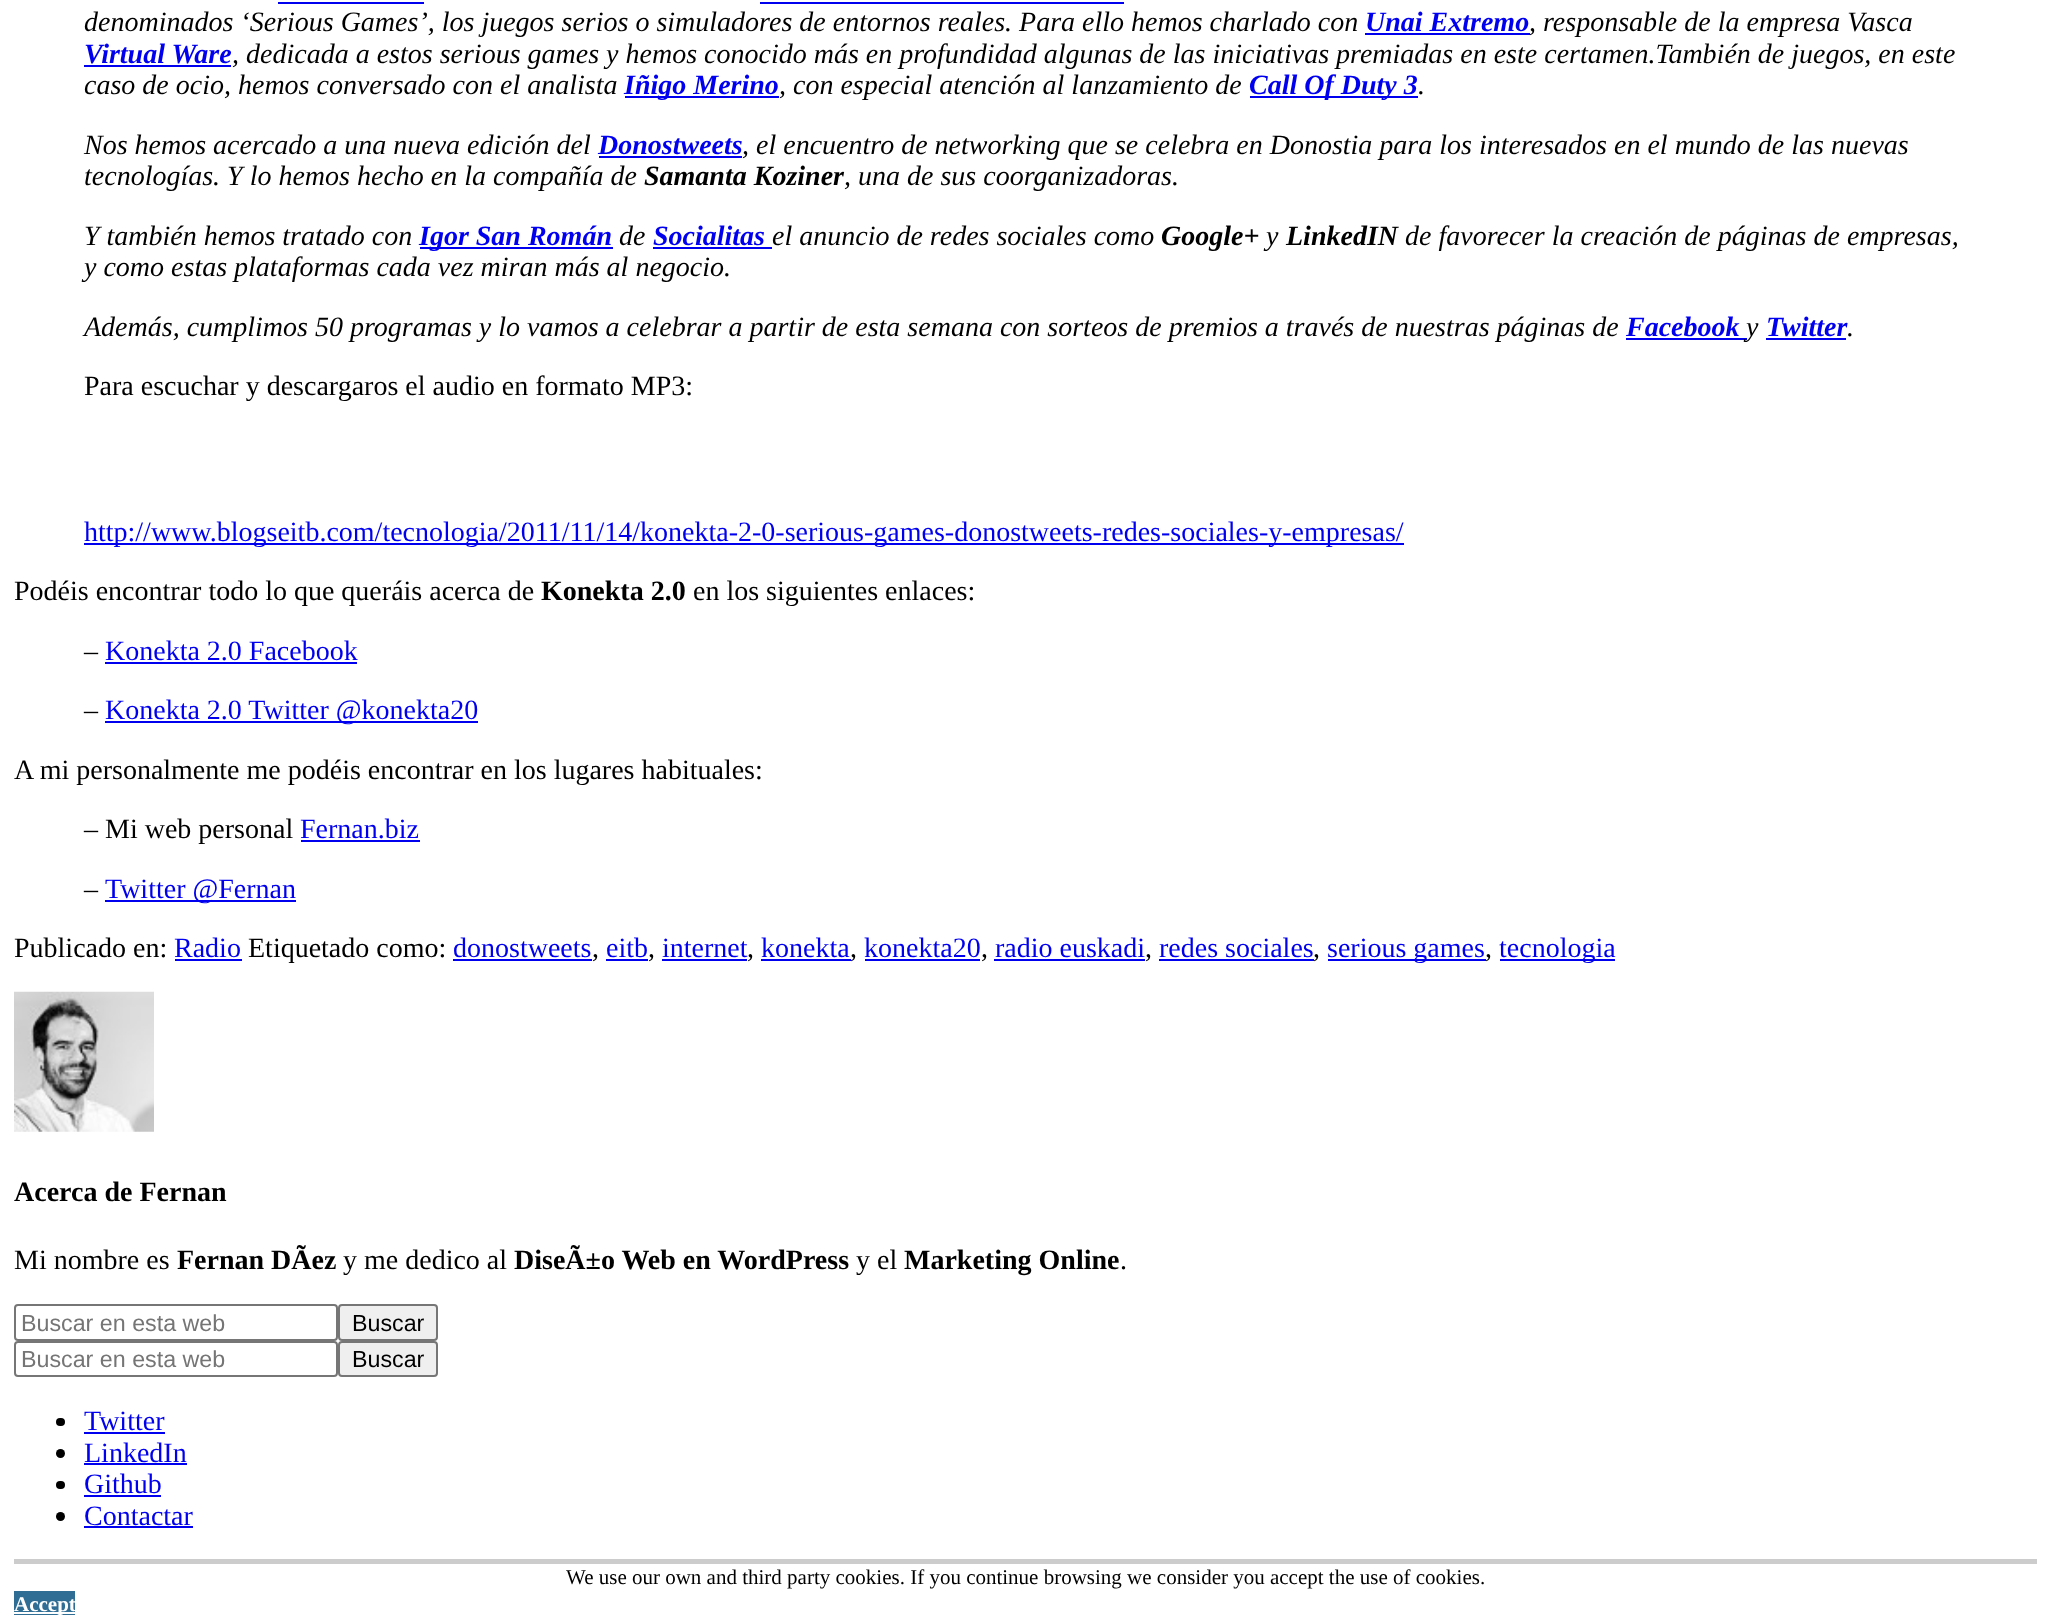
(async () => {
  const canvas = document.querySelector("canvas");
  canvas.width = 2051;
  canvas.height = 1618;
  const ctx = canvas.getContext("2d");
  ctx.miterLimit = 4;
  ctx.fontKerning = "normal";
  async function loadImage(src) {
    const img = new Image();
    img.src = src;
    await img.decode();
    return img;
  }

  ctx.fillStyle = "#ffffff";
  ctx.fillRect(0, 0, 2051, 1618);
  for (const [x, y, w, h, color] of [
    [278, 2, 146, 2, "#0000ee"],
    [760, 2, 364, 2, "#0000ee"],
    [1365, 33, 165, 2, "#0000ee"],
    [84, 65, 147, 2, "#0000ee"],
    [625, 96, 154, 2, "#0000ee"],
    [1250, 96, 168, 2, "#0000ee"],
    [599, 156, 143, 2, "#0000ee"],
    [420, 247, 193, 2, "#0000ee"],
    [653, 247, 119, 2, "#0000ee"],
    [1626, 338, 121, 2, "#0000ee"],
    [1766, 338, 80, 2, "#0000ee"],
    [84, 543, 1320, 2, "#0000ee"],
    [105, 662, 252, 2, "#0000ee"],
    [105, 721, 373, 2, "#0000ee"],
    [301, 840, 119, 2, "#0000ee"],
    [105, 900, 191, 2, "#0000ee"],
    [175, 959, 67, 2, "#0000ee"],
    [453, 959, 139, 2, "#0000ee"],
    [606, 959, 42, 2, "#0000ee"],
    [662, 959, 85, 2, "#0000ee"],
    [761, 959, 90, 2, "#0000ee"],
    [865, 959, 115, 2, "#0000ee"],
    [994, 959, 151, 2, "#0000ee"],
    [1159, 959, 155, 2, "#0000ee"],
    [1328, 959, 158, 2, "#0000ee"],
    [1500, 959, 115, 2, "#0000ee"],
  ]) {
    ctx.fillStyle = color;
    ctx.fillRect(x, y, w, h);
  }
  ctx.drawImage(await loadImage("img/1.png"), 14, 991, 140, 141);
  ctx.beginPath();
  ctx.roundRect(15, 1305, 322, 35, 3);
  ctx.strokeStyle = "#767676";
  ctx.lineWidth = 2;
  ctx.stroke();
  ctx.fillStyle = "#efefef";
  ctx.beginPath();
  ctx.roundRect(339, 1305, 98, 35, 3);
  ctx.fill();
  ctx.stroke();
  ctx.beginPath();
  ctx.roundRect(15, 1342, 322, 34, 3);
  ctx.stroke();
  ctx.beginPath();
  ctx.roundRect(339, 1342, 98, 34, 3);
  ctx.fill();
  ctx.stroke();
  ctx.fillStyle = "#000000";
  ctx.beginPath();
  ctx.roundRect(56, 1418, 9, 8, 4);
  ctx.fill();
  ctx.fillStyle = "#0000ee";
  ctx.fillRect(84, 1432, 81, 2);
  ctx.fillStyle = "#000000";
  ctx.beginPath();
  ctx.arc(60.5, 1453.5, 4.5, 0, Math.PI * 2);
  ctx.fill();
  ctx.fillStyle = "#0000ee";
  ctx.fillRect(84, 1463, 103, 2);
  ctx.fillStyle = "#000000";
  ctx.beginPath();
  ctx.roundRect(56, 1481, 9, 8, 4);
  ctx.fill();
  ctx.fillStyle = "#0000ee";
  ctx.fillRect(84, 1495, 77, 2);
  ctx.fillStyle = "#000000";
  ctx.beginPath();
  ctx.arc(60.5, 1516.5, 4.5, 0, Math.PI * 2);
  ctx.fill();
  for (const [x, y, w, h, color] of [
    [84, 1526, 109, 2, "#0000ee"],
    [14, 1559, 2023, 5, "#cccccc"],
    [14, 1591, 61, 24, "#2f6d94"],
    [14, 1612, 61, 2, "#ffffff"],
  ]) {
    ctx.fillStyle = color;
    ctx.fillRect(x, y, w, h);
  }
  ctx.font = "italic 28px Liberation Serif";
  ctx.fillStyle = "#000000";
  ctx.fillText("denominados ‘Serious Games’, los juegos serios o simuladores de entornos reales. Para ello hemos charlado con", 84, 31);
  ctx.font = "italic bold 28px Liberation Serif";
  ctx.fillStyle = "#0000ee";
  ctx.fillText("Unai Extremo", 1365, 31);
  ctx.font = "italic 28px Liberation Serif";
  ctx.fillStyle = "#000000";
  ctx.fillText(", responsable de la empresa Vasca", 1529, 31);
  ctx.font = "italic bold 28px Liberation Serif";
  ctx.fillStyle = "#0000ee";
  ctx.fillText("Virtual Ware", 84, 63);
  ctx.font = "italic 28px Liberation Serif";
  ctx.fillStyle = "#000000";
  ctx.fillText(", dedicada a estos serious games y hemos conocido más en profundidad algunas de las iniciativas premiadas en este certamen.También de juegos, en este", 232, 63);
  ctx.fillText("caso de ocio, hemos conversado con el analista", 84, 94);
  ctx.font = "italic bold 28px Liberation Serif";
  ctx.fillStyle = "#0000ee";
  ctx.fillText("Iñigo Merino", 624, 94);
  ctx.font = "italic 28px Liberation Serif";
  ctx.fillStyle = "#000000";
  ctx.fillText(", con especial atención al lanzamiento de", 779, 94);
  ctx.font = "italic bold 28px Liberation Serif";
  ctx.fillStyle = "#0000ee";
  ctx.fillText("Call Of Duty 3", 1249, 94);
  ctx.font = "italic 28px Liberation Serif";
  ctx.fillStyle = "#000000";
  ctx.fillText(".", 1418, 94);
  ctx.fillText("Nos hemos acercado a una nueva edición del", 84, 154);
  ctx.font = "italic bold 28px Liberation Serif";
  ctx.fillStyle = "#0000ee";
  ctx.fillText("Donostweets", 598, 154);
  ctx.font = "italic 28px Liberation Serif";
  ctx.fillStyle = "#000000";
  ctx.fillText(", el encuentro de networking que se celebra en Donostia para los interesados en el mundo de las nuevas", 742, 154);
  ctx.fillText("tecnologías. Y lo hemos hecho en la compañía de", 84, 185);
  ctx.font = "italic bold 28px Liberation Serif";
  ctx.fillText("Samanta Koziner", 644, 185);
  ctx.font = "italic 28px Liberation Serif";
  ctx.fillText(", una de sus coorganizadoras.", 844, 185);
  ctx.fillText("Y también hemos tratado con", 84, 245);
  ctx.font = "italic bold 28px Liberation Serif";
  ctx.fillStyle = "#0000ee";
  ctx.fillText("Igor San Román", 419, 245);
  ctx.font = "italic 28px Liberation Serif";
  ctx.fillStyle = "#000000";
  ctx.fillText("de", 619, 245);
  ctx.font = "italic bold 28px Liberation Serif";
  ctx.fillStyle = "#0000ee";
  ctx.fillText("Socialitas", 653, 245);
  ctx.font = "italic 28px Liberation Serif";
  ctx.fillStyle = "#000000";
  ctx.fillText("el anuncio de redes sociales como", 772, 245);
  ctx.font = "italic bold 28px Liberation Serif";
  ctx.fillText("Google+", 1161, 245);
  ctx.font = "italic 28px Liberation Serif";
  ctx.fillText("y", 1266, 245);
  ctx.font = "italic bold 28px Liberation Serif";
  ctx.fillText("LinkedIN", 1286, 245);
  ctx.font = "italic 28px Liberation Serif";
  for (const [text, x, y] of [
    ["de favorecer la creación de páginas de empresas,", 1405, 245],
    ["y como estas plataformas cada vez miran más al negocio.", 84, 276],
    ["Además, cumplimos 50 programas y lo vamos a celebrar a partir de esta semana con sorteos de premios a través de nuestras páginas de", 84, 336],
  ]) {
    ctx.fillText(text, x, y);
  }
  ctx.font = "italic bold 28px Liberation Serif";
  ctx.fillStyle = "#0000ee";
  ctx.fillText("Facebook", 1626, 336);
  ctx.font = "italic 28px Liberation Serif";
  ctx.fillStyle = "#000000";
  ctx.fillText("y", 1746, 336);
  ctx.font = "italic bold 28px Liberation Serif";
  ctx.fillStyle = "#0000ee";
  ctx.fillText("Twitter", 1766, 336);
  ctx.font = "italic 28px Liberation Serif";
  ctx.fillStyle = "#000000";
  ctx.fillText(".", 1847, 336);
  ctx.font = "28px Liberation Serif";
  ctx.fillText("Para escuchar y descargaros el audio en formato MP3:", 84, 395);
  ctx.fillStyle = "#0000ee";
  ctx.fillText("http://www.blogseitb.com/tecnologia/2011/11/14/konekta-2-0-serious-games-donostweets-redes-sociales-y-empresas/", 84, 541);
  ctx.fillStyle = "#000000";
  ctx.fillText("Podéis encontrar todo lo que queráis acerca de", 14, 600);
  ctx.font = "bold 28px Liberation Serif";
  ctx.fillText("Konekta 2.0", 541, 600);
  ctx.font = "28px Liberation Serif";
  ctx.fillText("en los siguientes enlaces:", 693, 600);
  ctx.fillText("–", 84, 660);
  ctx.fillStyle = "#0000ee";
  ctx.fillText("Konekta 2.0 Facebook", 105, 660);
  ctx.fillStyle = "#000000";
  ctx.fillText("–", 84, 719);
  ctx.fillStyle = "#0000ee";
  ctx.fillText("Konekta 2.0 Twitter @konekta20", 105, 719);
  ctx.fillStyle = "#000000";
  ctx.fillText("A mi personalmente me podéis encontrar en los lugares habituales:", 14, 779);
  ctx.fillText("– Mi web personal", 84, 838);
  ctx.fillStyle = "#0000ee";
  ctx.fillText("Fernan.biz", 300, 838);
  ctx.fillStyle = "#000000";
  ctx.fillText("–", 84, 898);
  ctx.fillStyle = "#0000ee";
  ctx.fillText("Twitter @Fernan", 105, 898);
  ctx.fillStyle = "#000000";
  ctx.fillText("Publicado en:", 14, 957);
  ctx.fillStyle = "#0000ee";
  ctx.fillText("Radio", 174, 957);
  ctx.fillStyle = "#000000";
  ctx.fillText("Etiquetado como:", 248, 957);
  ctx.fillStyle = "#0000ee";
  ctx.fillText("donostweets", 453, 957);
  ctx.fillStyle = "#000000";
  ctx.fillText(",", 592, 957);
  ctx.fillStyle = "#0000ee";
  ctx.fillText("eitb", 606, 957);
  ctx.fillStyle = "#000000";
  ctx.fillText(",", 648, 957);
  ctx.fillStyle = "#0000ee";
  ctx.fillText("internet", 662, 957);
  ctx.fillStyle = "#000000";
  ctx.fillText(",", 747, 957);
  ctx.fillStyle = "#0000ee";
  ctx.fillText("konekta", 761, 957);
  ctx.fillStyle = "#000000";
  ctx.fillText(",", 850, 957);
  ctx.fillStyle = "#0000ee";
  ctx.fillText("konekta20", 864, 957);
  ctx.fillStyle = "#000000";
  ctx.fillText(",", 981, 957);
  ctx.fillStyle = "#0000ee";
  ctx.fillText("radio euskadi", 995, 957);
  ctx.fillStyle = "#000000";
  ctx.fillText(",", 1145, 957);
  ctx.fillStyle = "#0000ee";
  ctx.fillText("redes sociales", 1159, 957);
  ctx.fillStyle = "#000000";
  ctx.fillText(",", 1313, 957);
  ctx.fillStyle = "#0000ee";
  ctx.fillText("serious games", 1327, 957);
  ctx.fillStyle = "#000000";
  ctx.fillText(",", 1485, 957);
  ctx.fillStyle = "#0000ee";
  ctx.fillText("tecnologia", 1499, 957);
  ctx.font = "bold 28px Liberation Serif";
  ctx.fillStyle = "#000000";
  ctx.fillText("Acerca de Fernan", 14, 1201);
  ctx.font = "28px Liberation Serif";
  ctx.fillText("Mi nombre es", 14, 1269);
  ctx.font = "bold 28px Liberation Serif";
  ctx.fillText("Fernan DÃez", 177, 1269);
  ctx.font = "28px Liberation Serif";
  ctx.fillText("y me dedico al", 343, 1269);
  ctx.font = "bold 28px Liberation Serif";
  ctx.fillText("DiseÃ±o Web en WordPress", 514, 1269);
  ctx.font = "28px Liberation Serif";
  ctx.fillText("y el", 856, 1269);
  ctx.font = "bold 28px Liberation Serif";
  ctx.fillText("Marketing Online", 904, 1269);
  ctx.font = "28px Liberation Serif";
  ctx.fillText(".", 1120, 1269);
  ctx.font = "23.25px Liberation Sans";
  ctx.fillStyle = "#757575";
  ctx.fillText("Buscar en esta web", 21, 1331);
  ctx.fillStyle = "#000000";
  ctx.fillText("Buscar", 352, 1331);
  ctx.fillStyle = "#757575";
  ctx.fillText("Buscar en esta web", 21, 1367);
  ctx.fillStyle = "#000000";
  ctx.fillText("Buscar", 352, 1367);
  ctx.font = "28px Liberation Serif";
  ctx.fillStyle = "#0000ee";
  for (const [text, x, y] of [
    ["Twitter", 84, 1430],
    ["LinkedIn", 84, 1462],
    ["Github", 84, 1493],
    ["Contactar", 84, 1525],
  ]) {
    ctx.fillText(text, x, y);
  }
  ctx.font = "21px Liberation Serif";
  ctx.fillStyle = "#000000";
  ctx.fillText("We use our own and third party cookies. If you continue browsing we consider you accept the use of cookies.", 566, 1584);
  ctx.font = "bold 21px Liberation Serif";
  ctx.fillStyle = "#ffffff";
  ctx.fillText("Accept", 14, 1611);
})();
